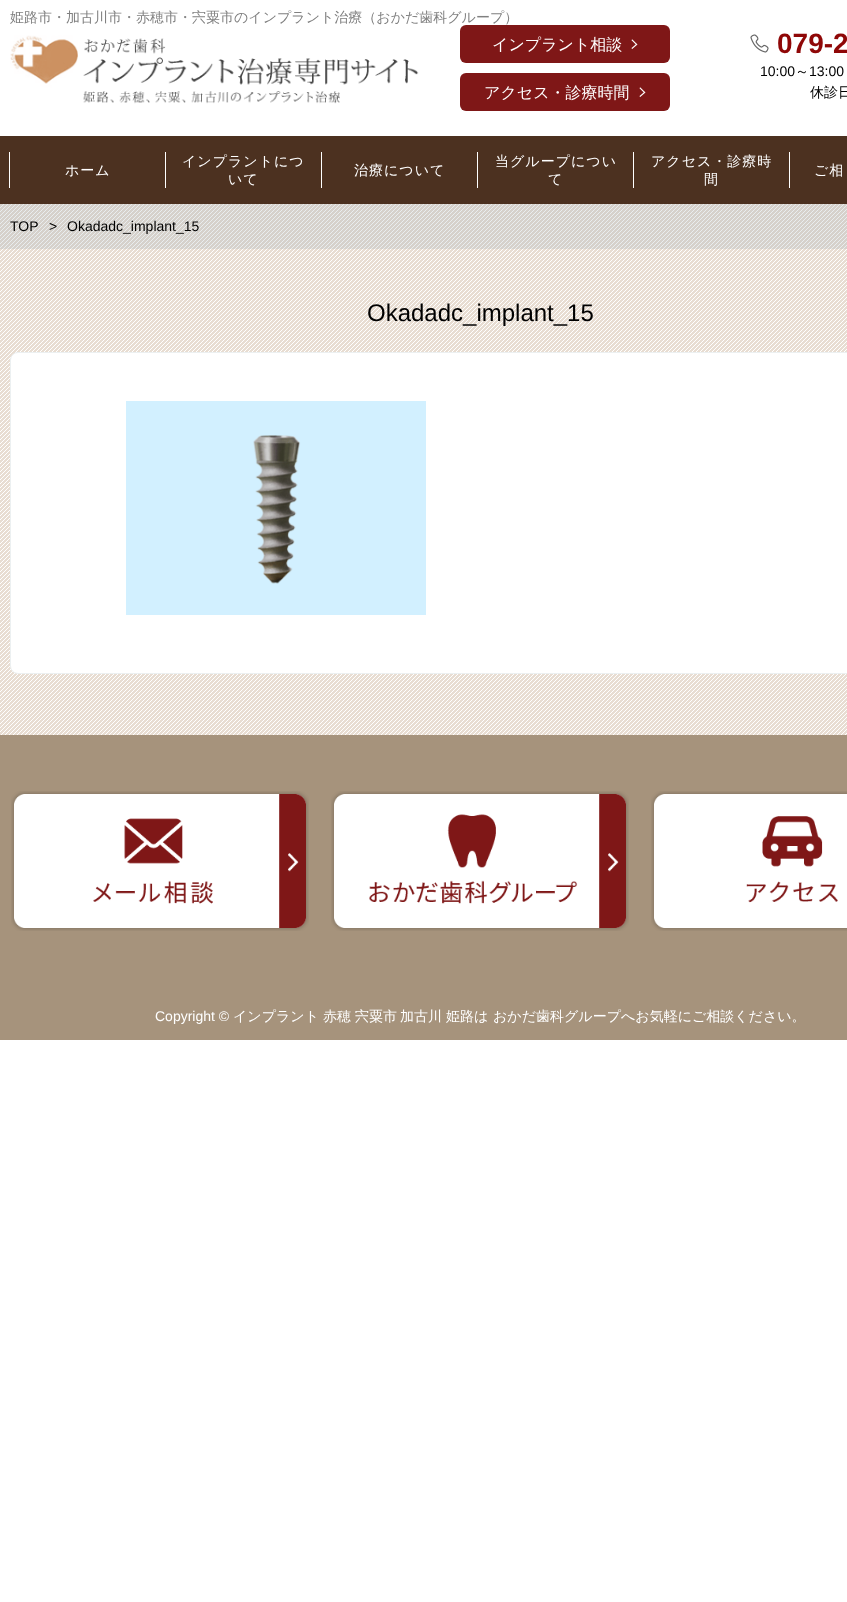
(async () => {
  const canvas = document.querySelector("canvas");
  canvas.width = 847;
  canvas.height = 1602;
  const ctx = canvas.getContext("2d");
  ctx.miterLimit = 4;
  ctx.fontKerning = "normal";
  async function loadImage(src) {
    const img = new Image();
    img.src = src;
    await img.decode();
    return img;
  }

  ctx.fillStyle = "#ffffff";
  ctx.fillRect(0, 0, 847, 1602);
  ctx.drawImage(await loadImage("img/1.png"), 10, 35, 409, 69);
  ctx.fillStyle = "#7f1717";
  ctx.beginPath();
  ctx.roundRect(460, 25, 210, 38, 6);
  ctx.fill();
  ctx.drawImage(await loadImage("img/2.png"), 631, 39, 7, 10);
  ctx.beginPath();
  ctx.roundRect(460, 73, 210, 38, 6);
  ctx.fill();
  ctx.drawImage(await loadImage("img/2.png"), 639, 87, 7, 10);
  ctx.drawImage(await loadImage("img/3.png"), 750, 34, 19, 19);
  for (const [x, y, w, h, color] of [
    [0, 136, 847, 68, "#4c3120"],
    [9, 152, 1, 36, "#ffffff"],
    [165, 152, 1, 36, "#ffffff"],
    [321, 152, 1, 36, "#ffffff"],
    [477, 152, 1, 36, "#ffffff"],
    [633, 152, 1, 36, "#ffffff"],
    [789, 152, 1, 36, "#ffffff"],
    [0, 204, 847, 531, "#e8ddd2"],
  ]) {
    ctx.fillStyle = color;
    ctx.fillRect(x, y, w, h);
  }
  ctx.drawImage(await loadImage("img/4.png"), 0, 204, 847, 531);
  ctx.fillStyle = "rgba(145, 163, 174, 0.2)";
  ctx.fillRect(0, 204, 847, 45);
  ctx.fillStyle = "#ffffff";
  ctx.beginPath();
  ctx.roundRect(10.5, 352.5, 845, 321, 7.5);
  ctx.fill();
  ctx.strokeStyle = "#ecf0f1";
  ctx.stroke();
  ctx.drawImage(await loadImage("img/5.png"), 126, 401, 300, 214);
  ctx.fillStyle = "#a6937c";
  ctx.fillRect(0, 735, 847, 305);
  ctx.drawImage(await loadImage("img/6.png"), 11, 791, 298, 140);
  ctx.drawImage(await loadImage("img/7.png"), 331, 791, 298, 140);
  ctx.drawImage(await loadImage("img/8.png"), 651, 791, 196, 140);
  ctx.font = "500 14px WenQuanYi Zen Hei";
  ctx.fillStyle = "#808080";
  ctx.fillText("姫路市・加古川市・赤穂市・宍粟市のインプラント治療（おかだ歯科グループ）", 10, 22);
  ctx.font = "500 16px WenQuanYi Zen Hei";
  ctx.fillStyle = "#ffffff";
  ctx.fillText("インプラント相談", 492, 50);
  ctx.fillText("アクセス・診療時間", 484, 98);
  ctx.font = "bold 28px Liberation Sans";
  ctx.fillStyle = "#8f0707";
  ctx.fillText("079-2", 777, 53);
  ctx.font = "14px Liberation Sans";
  ctx.fillStyle = "#000000";
  ctx.fillText("10:00", 760, 76);
  ctx.font = "500 14px WenQuanYi Zen Hei";
  ctx.fillText("～", 795, 76);
  ctx.font = "14px Liberation Sans";
  ctx.fillText("13:00", 809, 76);
  ctx.font = "500 14px WenQuanYi Zen Hei";
  ctx.fillText("休診日", 810, 97);
  ctx.letterSpacing = "1px";
  ctx.fillStyle = "#ffffff";
  for (const [text, x, y] of [
    ["ホーム", 65, 175],
    ["インプラントにつ", 182, 166],
    ["いて", 228, 184],
    ["治療について", 354, 175],
    ["当グループについ", 495, 166],
    ["て", 548, 184],
    ["アクセス・診療時", 651, 166],
    ["間", 704, 184],
    ["ご相", 814, 175],
  ]) {
    ctx.fillText(text, x, y);
  }
  ctx.letterSpacing = "0px";
  ctx.font = "14px Liberation Sans";
  ctx.fillStyle = "#000000";
  for (const [text, x, y] of [
    ["TOP", 10, 231],
    [">", 49, 231],
    ["Okadadc_implant_15", 67, 231],
  ]) {
    ctx.fillText(text, x, y);
  }
  ctx.font = "24px Liberation Sans";
  ctx.fillText("Okadadc_implant_15", 367, 321);
  ctx.font = "14px Liberation Sans";
  ctx.fillStyle = "#ffffff";
  ctx.fillText("Copyright ©", 155, 1021);
  ctx.font = "500 14px WenQuanYi Zen Hei";
  for (const [text, x, y] of [
    ["インプラント", 233, 1021],
    ["赤穂", 323, 1021],
    ["宍粟市", 355, 1021],
    ["加古川", 400, 1021],
    ["姫路は", 446, 1021],
    ["おかだ歯科グループへお気軽にご相談ください。", 493, 1021],
  ]) {
    ctx.fillText(text, x, y);
  }
})();
